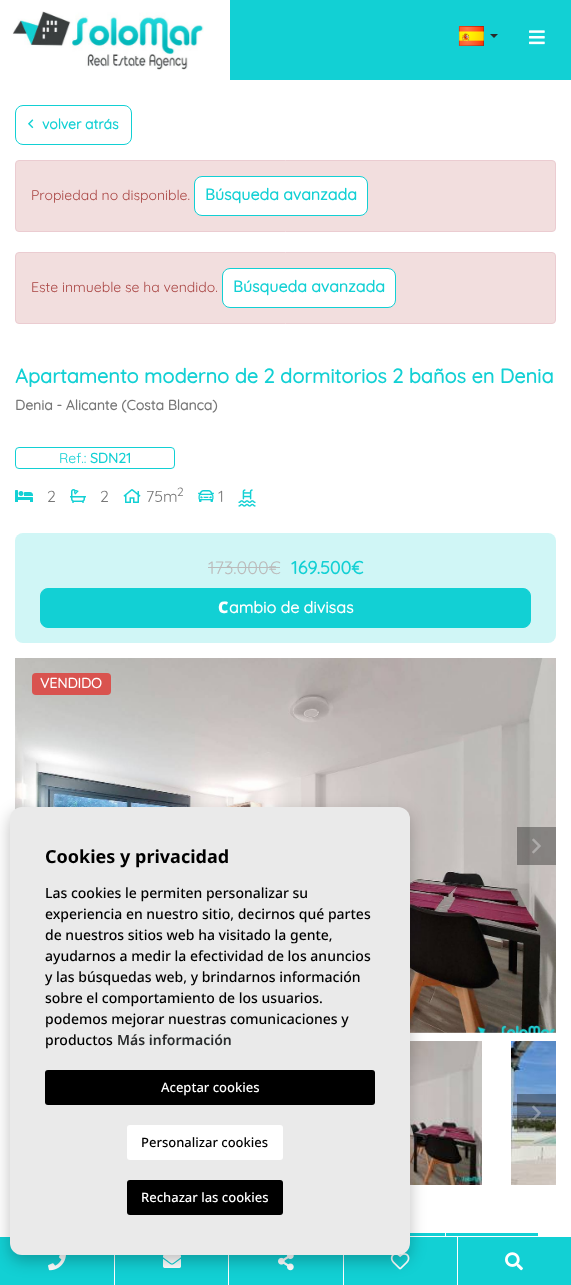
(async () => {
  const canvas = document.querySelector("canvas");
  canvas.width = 571;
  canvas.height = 1285;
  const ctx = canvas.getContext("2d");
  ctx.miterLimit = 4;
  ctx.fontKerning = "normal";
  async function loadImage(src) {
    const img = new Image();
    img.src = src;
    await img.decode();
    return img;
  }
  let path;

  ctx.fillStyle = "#ffffff";
  ctx.fillRect(0, 0, 571, 1285);
  ctx.fillStyle = "#12d0d4";
  ctx.fillRect(230, 0, 341, 80);
  ctx.drawImage(await loadImage("img/1.png"), 12, 11, 192, 59);
  ctx.drawImage(await loadImage("img/2.png"), 458, 26, 26, 20);
  ctx.fillStyle = "#292b2c";
  path = new Path2D("M490 34H498L494 38Z");
  ctx.fill(path);
  ctx.drawImage(await loadImage("img/3.png"), 529, 30, 16, 15);
  ctx.beginPath();
  ctx.roundRect(15.5, 105.5, 116, 39, 7.5);
  ctx.strokeStyle = "#12d0d4";
  ctx.stroke();
  ctx.drawImage(await loadImage("img/4.png"), 28, 119, 6, 10);
  ctx.fillStyle = "#f2dede";
  ctx.beginPath();
  ctx.roundRect(15.5, 160.5, 540, 71, 3.5);
  ctx.fill();
  ctx.strokeStyle = "#ebccd1";
  ctx.stroke();
  ctx.fillStyle = "#ffffff";
  ctx.beginPath();
  ctx.roundRect(194.5, 176.5, 173, 39, 7.5);
  ctx.fill();
  ctx.strokeStyle = "#12d0d4";
  ctx.stroke();
  ctx.fillStyle = "#f2dede";
  ctx.beginPath();
  ctx.roundRect(15.5, 252.5, 540, 71, 3.5);
  ctx.fill();
  ctx.strokeStyle = "#ebccd1";
  ctx.stroke();
  ctx.fillStyle = "#ffffff";
  ctx.beginPath();
  ctx.roundRect(222.5, 268.5, 173, 39, 7.5);
  ctx.fill();
  ctx.strokeStyle = "#12d0d4";
  ctx.stroke();
  ctx.beginPath();
  ctx.roundRect(15.5, 447.5, 159, 21, 3.5);
  ctx.stroke();
  ctx.drawImage(await loadImage("img/5.png"), 15, 490, 18, 12);
  ctx.drawImage(await loadImage("img/6.png"), 70, 489, 16, 14);
  ctx.drawImage(await loadImage("img/7.png"), 123, 489, 18, 14);
  ctx.drawImage(await loadImage("img/8.png"), 198, 490, 16, 12);
  ctx.drawImage(await loadImage("img/9.png"), 238, 489, 18, 18);
  ctx.fillStyle = "#d0f6f6";
  ctx.beginPath();
  ctx.roundRect(15, 533, 541, 110, 8);
  ctx.fill();
  ctx.fillStyle = "#bbbbbb";
  ctx.fillRect(208, 567, 72, 1);
  ctx.fillStyle = "#12d0d4";
  ctx.beginPath();
  ctx.roundRect(40.5, 588.5, 490, 39, 7.5);
  ctx.fill();
  ctx.stroke();
  ctx.drawImage(await loadImage("img/10.png"), 15, 658, 541, 375);
  ctx.fillStyle = "rgba(0, 0, 0, 0.33)";
  ctx.fillRect(517, 827, 39, 38);
  ctx.drawImage(await loadImage("img/11.png"), 532, 838, 9, 16);
  ctx.fillStyle = "#d9534f";
  ctx.beginPath();
  ctx.roundRect(32, 673, 79, 22, 4);
  ctx.fill();
  ctx.drawImage(await loadImage("img/12.png"), 410, 1041, 72, 144);
  ctx.drawImage(await loadImage("img/13.png"), 511, 1041, 45, 144);
  ctx.fillStyle = "rgba(0, 0, 0, 0.33)";
  ctx.fillRect(517, 1094, 39, 38);
  ctx.drawImage(await loadImage("img/14.png"), 532, 1105, 9, 16);
  for (const [x, y, w, h, color] of [
    [410, 1233, 35, 3, "#12d0d4"],
    [446, 1233, 92, 3, "#12d0d4"],
    [0, 1237, 571, 48, "#12d0d4"],
  ]) {
    ctx.fillStyle = color;
    ctx.fillRect(x, y, w, h);
  }
  ctx.drawImage(await loadImage("img/15.png"), 48, 1255, 18, 16);
  ctx.fillStyle = "#ffffff";
  ctx.fillRect(114, 1255, 1, 30);
  ctx.drawImage(await loadImage("img/16.png"), 163, 1255, 18, 13);
  ctx.fillRect(228, 1255, 1, 30);
  ctx.drawImage(await loadImage("img/17.png"), 278, 1255, 16, 16);
  ctx.fillRect(343, 1255, 1, 30);
  ctx.drawImage(await loadImage("img/18.png"), 390, 1253, 20, 17);
  ctx.fillStyle = "rgba(0, 0, 0, 0.25)";
  ctx.filter = "blur(8px)";
  ctx.beginPath();
  ctx.roundRect(10, 813, 400, 448, 12);
  ctx.fill();
  ctx.filter = "none";
  ctx.fillStyle = "#eaeaea";
  ctx.beginPath();
  ctx.roundRect(10, 807, 400, 448, 12);
  ctx.fill();
  ctx.fillStyle = "#000000";
  ctx.beginPath();
  ctx.roundRect(45, 1070, 330, 35, 3);
  ctx.fill();
  ctx.fillStyle = "#ffffff";
  ctx.beginPath();
  ctx.roundRect(127, 1125, 156, 35, 3);
  ctx.fill();
  ctx.fillStyle = "#000000";
  ctx.beginPath();
  ctx.roundRect(127, 1180, 156, 35, 3);
  ctx.fill();
  ctx.fillStyle = "#ffffff";
  ctx.fillRect(457, 1237, 1, 48);
  ctx.drawImage(await loadImage("img/19.png"), 505, 1252, 18, 19);
  ctx.font = "bold 14px Quicksand";
  ctx.fillStyle = "#12d0d4";
  ctx.fillText("volver atrás", 42, 129);
  ctx.font = "300 14px Quicksand";
  ctx.fillStyle = "#a94442";
  ctx.fillText("Propiedad no disponible.", 31, 200);
  ctx.font = "16px Noto Sans";
  ctx.fillStyle = "#12d0d4";
  ctx.fillText("B", 205, 200);
  ctx.font = "bold 16px Quicksand";
  ctx.fillText("úsqueda avanzada", 215, 200);
  ctx.font = "300 14px Quicksand";
  ctx.fillStyle = "#a94442";
  ctx.fillText("Este inmueble se ha vendido.", 31, 292);
  ctx.font = "16px Noto Sans";
  ctx.fillStyle = "#12d0d4";
  ctx.fillText("B", 233, 292);
  ctx.font = "bold 16px Quicksand";
  ctx.fillText("úsqueda avanzada", 243, 292);
  ctx.font = "bold 20px Quicksand";
  ctx.fillText("Apartamento moderno de 2 dormitorios 2 baños en Denia", 15, 383);
  ctx.font = "bold 14px Quicksand";
  ctx.fillStyle = "#777777";
  ctx.fillText("Denia - Alicante (Costa Blanca)", 15, 410);
  ctx.font = "300 14px Quicksand";
  ctx.fillStyle = "#12d0d4";
  ctx.fillText("Ref.:", 59, 463);
  ctx.font = "bold 14px Quicksand";
  ctx.fillText("SDN21", 90, 463);
  ctx.font = "300 16px Quicksand";
  ctx.fillStyle = "#777777";
  for (const [text, x, y] of [
    ["2", 47, 502],
    ["2", 100, 502],
    ["75m", 146, 502],
  ]) {
    ctx.fillText(text, x, y);
  }
  ctx.font = "300 12px Quicksand";
  ctx.fillText("2", 177, 496);
  ctx.font = "300 16px Quicksand";
  ctx.fillText("1", 218, 502);
  ctx.font = "300 18px Quicksand";
  ctx.fillStyle = "#bbbbbb";
  ctx.fillText("173.000€", 208, 574);
  ctx.font = "bold 18px Quicksand";
  ctx.fillStyle = "#12d0d4";
  ctx.fillText("169.500€", 291, 574);
  ctx.font = "900 16px Noto Sans";
  ctx.fillStyle = "#ffffff";
  ctx.fillText("C", 218, 613);
  ctx.font = "bold 16px Quicksand";
  ctx.fillText("ambio de divisas", 229, 613);
  ctx.font = "bold 14px Quicksand";
  ctx.fillText("VENDIDO", 40, 688);
  ctx.font = "bold 18px Noto Sans";
  ctx.fillStyle = "#000000";
  ctx.fillText("Cookies y privacidad", 45, 863);
  ctx.font = "500 14px Noto Sans";
  for (const [text, x, y] of [
    ["Las cookies le permiten personalizar su", 45, 898],
    ["experiencia en nuestro sitio, decirnos qué partes", 45, 919],
    ["de nuestros sitios web ha visitado la gente,", 45, 940],
    ["ayudarnos a medir la efectividad de los anuncios", 45, 961],
    ["y las búsquedas web, y brindarnos información", 45, 982],
    ["sobre el comportamiento de los usuarios.", 45, 1003],
    ["podemos mejorar nuestras comunicaciones y", 45, 1024],
    ["productos", 45, 1045],
  ]) {
    ctx.fillText(text, x, y);
  }
  ctx.font = "600 14px Noto Sans";
  ctx.fillStyle = "#292b2c";
  ctx.fillText("Más información", 117, 1045);
  ctx.font = "500 13px Noto Sans";
  ctx.fillStyle = "#ffffff";
  ctx.fillText("Aceptar cookies", 161, 1092);
  ctx.fillStyle = "#000000";
  ctx.fillText("Personalizar cookies", 141, 1147);
  ctx.fillStyle = "#ffffff";
  ctx.fillText("Rechazar las cookies", 141, 1202);
})();
